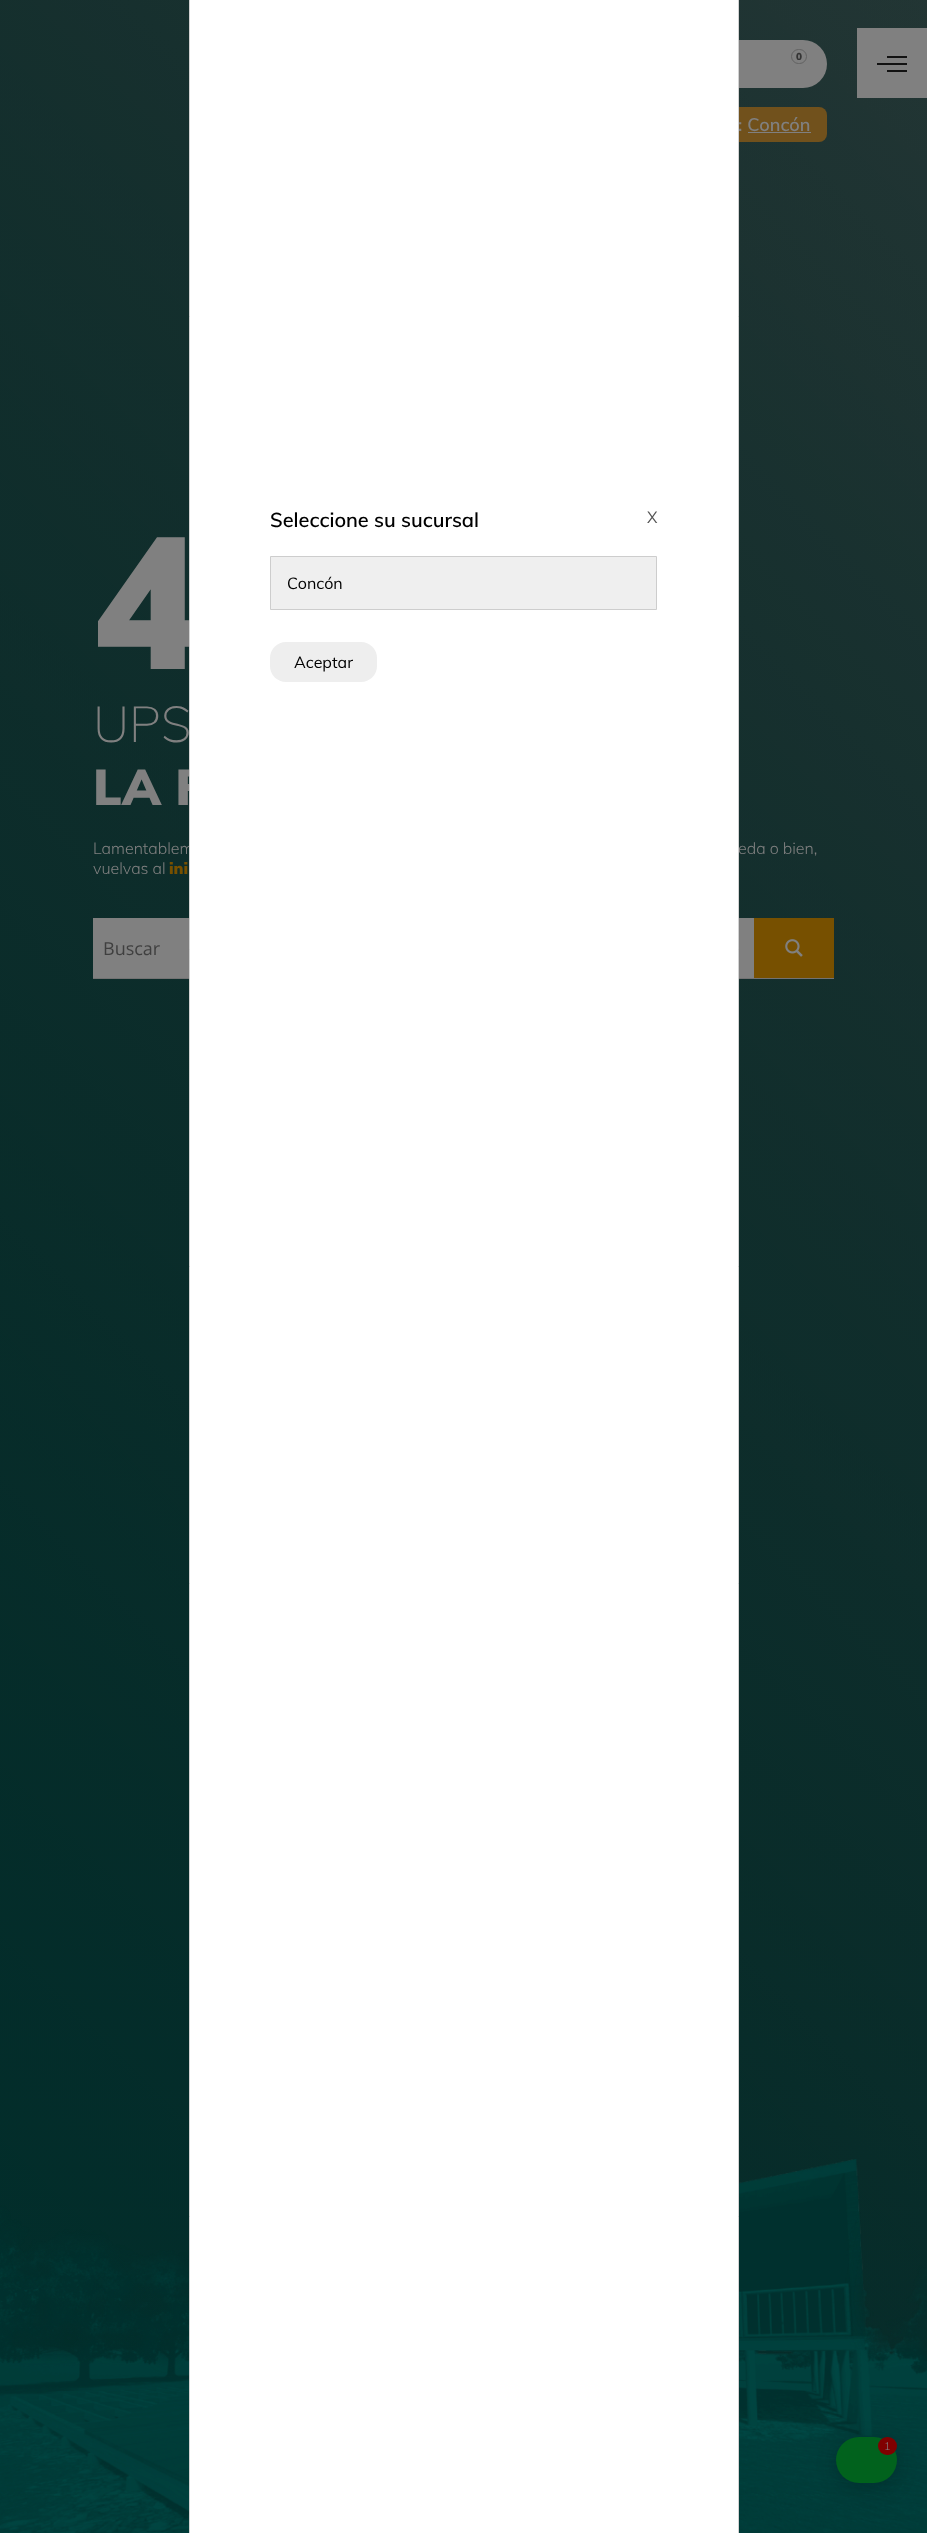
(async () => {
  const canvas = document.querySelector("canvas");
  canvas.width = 927;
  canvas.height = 2533;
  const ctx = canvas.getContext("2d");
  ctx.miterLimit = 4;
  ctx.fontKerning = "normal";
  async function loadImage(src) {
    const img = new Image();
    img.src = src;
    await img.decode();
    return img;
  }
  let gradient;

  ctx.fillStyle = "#ffffff";
  ctx.fillRect(0, 0, 927, 2533);
  gradient = ctx.createLinearGradient(-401, 2132, 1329, 401);
  gradient.addColorStop(0, "#121212");
  gradient.addColorStop(1, "#393939");
  ctx.fillStyle = gradient;
  ctx.fillRect(0, 0, 927, 2376);
  gradient = ctx.createLinearGradient(-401, 2132, 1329, 401);
  gradient.addColorStop(0, "rgba(0, 48, 45, 0.95)");
  gradient.addColorStop(1, "rgba(0, 48, 45, 0.4)");
  ctx.fillStyle = gradient;
  ctx.fillRect(0, 0, 927, 2376);
  ctx.fillStyle = "#808080";
  ctx.beginPath();
  ctx.roundRect(597, 40, 230, 48, 24);
  ctx.fill();
  ctx.beginPath();
  ctx.roundRect(791.5, 49.5, 15, 14, 7);
  ctx.strokeStyle = "#626262";
  ctx.stroke();
  ctx.fillStyle = "#71511c";
  ctx.beginPath();
  ctx.roundRect(593, 107, 234, 35, 8);
  ctx.fill();
  for (const [x, y, w, h, color] of [
    [748, 132, 63, 1, "#808080"],
    [857, 28, 70, 70, "#808080"],
    [887, 56, 20, 2, "#121212"],
    [877, 63, 30, 2, "#121212"],
    [887, 70, 20, 2, "#121212"],
    [93, 978, 741, 1, "#727272"],
    [93, 918, 661, 60, "#808080"],
    [754, 918, 80, 60, "#775000"],
  ]) {
    ctx.fillStyle = color;
    ctx.fillRect(x, y, w, h);
  }
  ctx.drawImage(await loadImage("img/1.png"), 785, 939, 18, 18);
  ctx.drawImage(await loadImage("img/2.png"), 0, 2159, 927, 374);
  ctx.fillStyle = "rgba(0, 0, 0, 0.2)";
  ctx.filter = "blur(10px)";
  ctx.beginPath();
  ctx.roundRect(836, 2442, 61, 46, 23);
  ctx.fill();
  ctx.filter = "none";
  ctx.fillStyle = "#01621d";
  ctx.beginPath();
  ctx.roundRect(836, 2437, 61, 46, 23);
  ctx.fill();
  ctx.fillStyle = "#800000";
  ctx.beginPath();
  ctx.roundRect(878, 2437, 19, 18, 9);
  ctx.fill();
  ctx.font = "900 10px Muli";
  ctx.fillStyle = "#333333";
  ctx.fillText("0", 796, 60);
  ctx.font = "600 18px Muli";
  ctx.fillStyle = "#808080";
  ctx.fillText(": Concón", 738, 131);
  ctx.font = "900 185px Muli";
  ctx.fillText("4", 93, 669);
  ctx.font = "200 50px Muli";
  ctx.fillText("UPS", 93, 742);
  ctx.font = "900 50px Muli";
  ctx.fillText("LA P", 93, 805);
  ctx.font = "300 16px Muli";
  ctx.fillText("Lamentablem", 93, 854);
  ctx.fillText("eda o bien,", 738, 854);
  ctx.fillStyle = "#ffffff";
  ctx.beginPath();
  ctx.rect(189.5, -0.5, 549, 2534);
  ctx.fill();
  ctx.strokeStyle = "#d2d2d2";
  ctx.stroke();
  ctx.fillStyle = "#eeeeee";
  ctx.beginPath();
  ctx.roundRect(270, 642, 107, 40, 16);
  ctx.fill();
  ctx.font = "16px Muli";
  ctx.fillStyle = "#000000";
  ctx.fillText("Aceptar", 294, 668);
  ctx.fillStyle = "#efefef";
  ctx.beginPath();
  ctx.rect(270.5, 556.5, 386, 53);
  ctx.fill();
  ctx.strokeStyle = "#cdcdcd";
  ctx.stroke();
  ctx.fillStyle = "#000000";
  ctx.fillText("Concón", 287, 589);
  ctx.fillStyle = "#555555";
  ctx.fillText("X", 647, 523);
  ctx.font = "600 20px Muli";
  ctx.fillStyle = "#000000";
  ctx.fillText("Seleccione su sucursal", 270, 527);
  ctx.font = "300 16px Muli";
  ctx.fillStyle = "#808080";
  ctx.fillText("vuelvas al", 93, 874);
  ctx.font = "900 16px Muli";
  ctx.fillStyle = "#775000";
  ctx.fillText("ini", 169, 874);
  ctx.font = "18px Open Sans";
  ctx.fillStyle = "#3f3f3f";
  ctx.fillText("Buscar", 103, 955);
  ctx.font = "300 11px Muli";
  ctx.fillStyle = "#808080";
  ctx.fillText("1", 884, 2450);
})();
